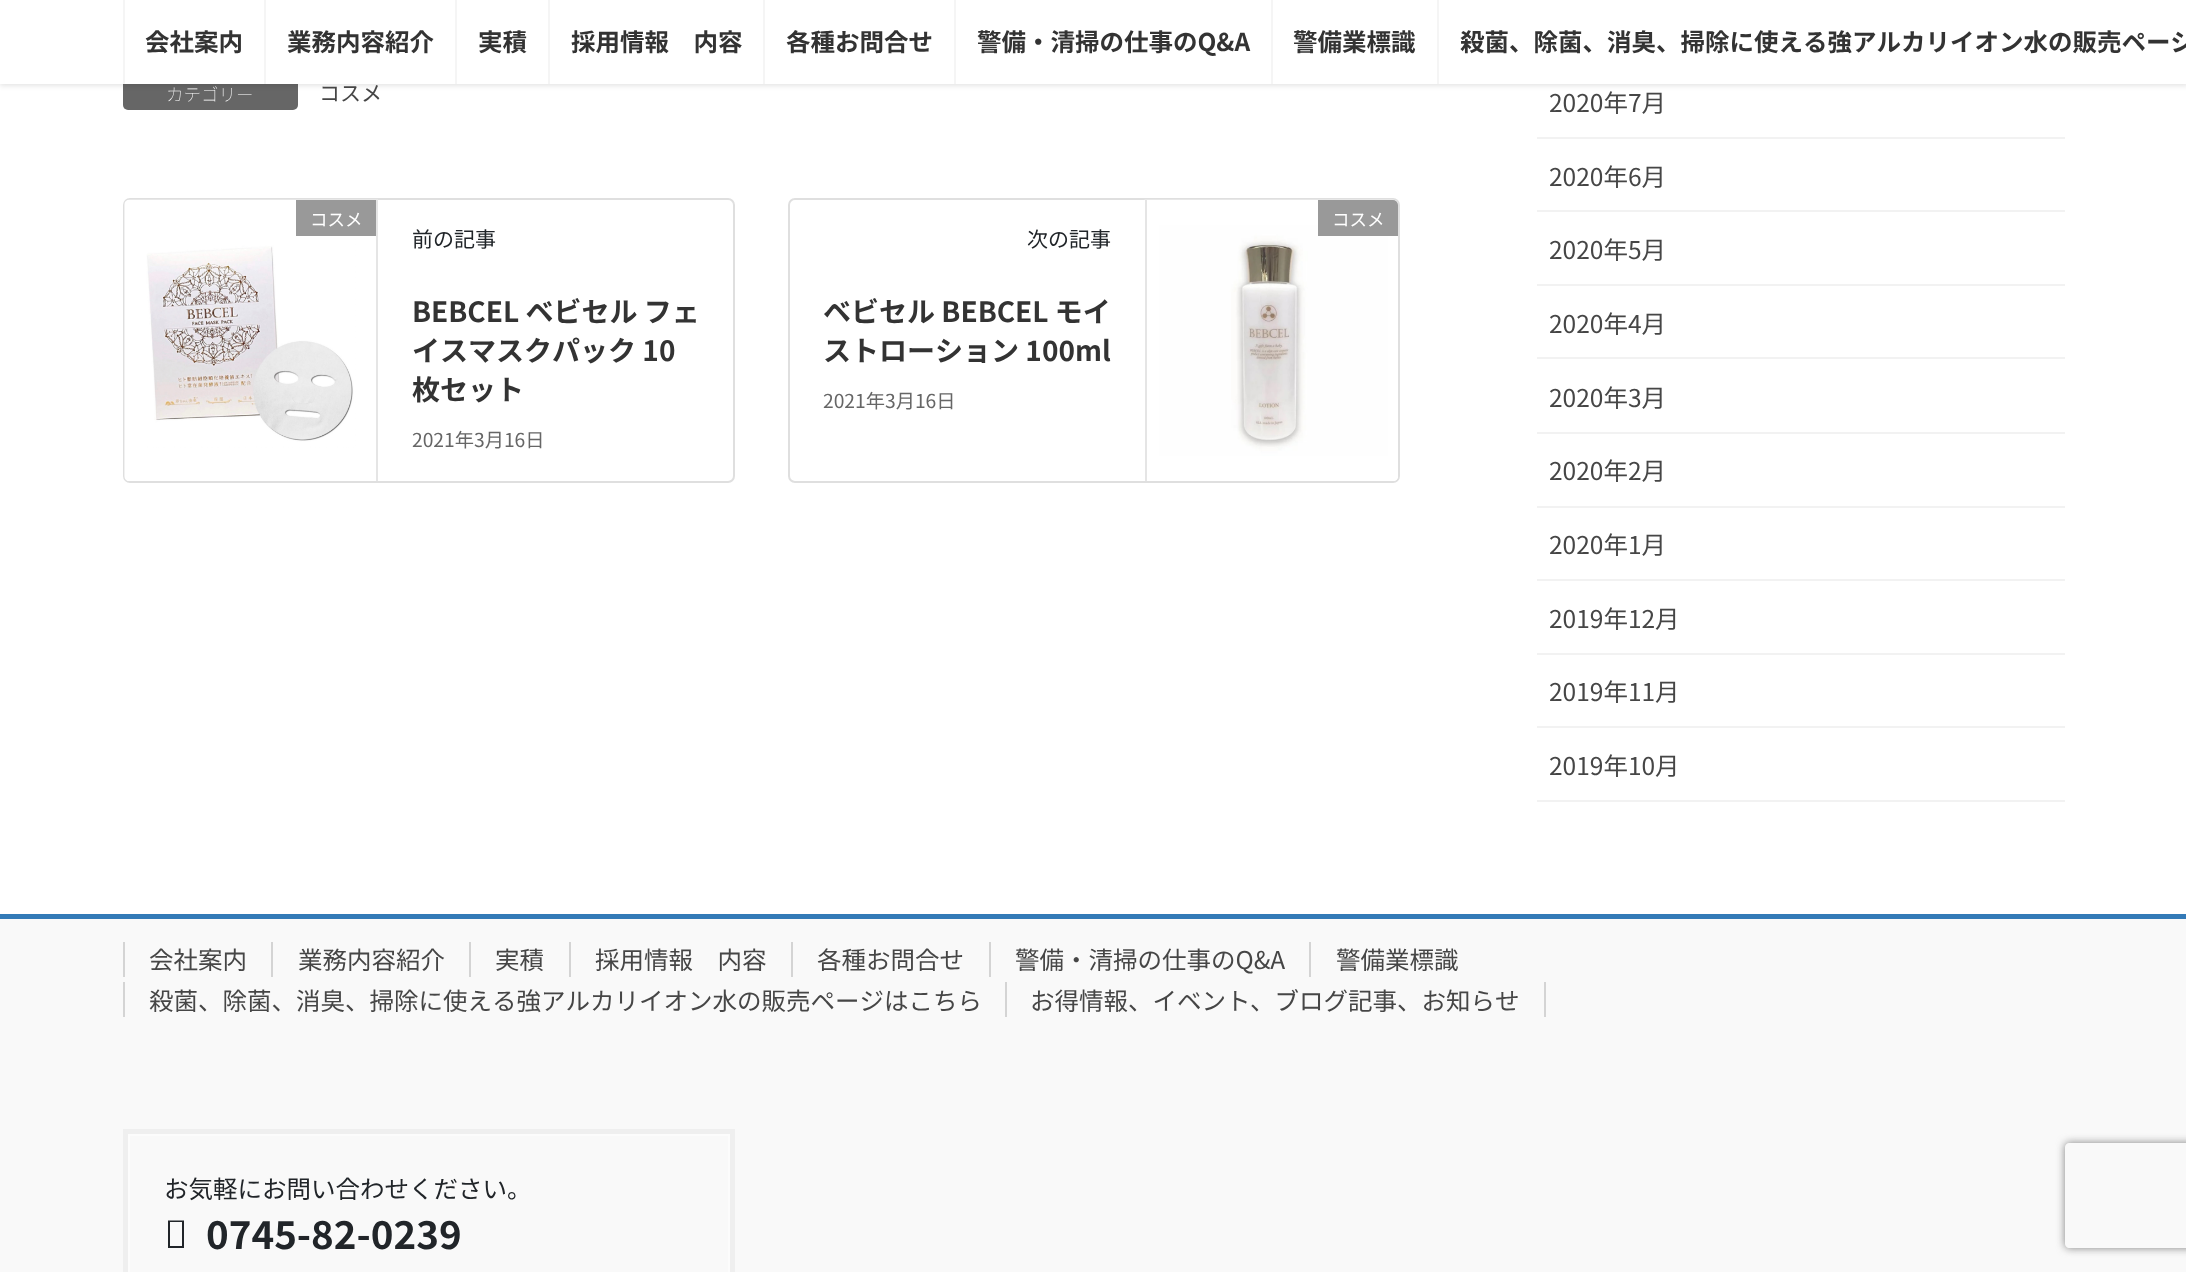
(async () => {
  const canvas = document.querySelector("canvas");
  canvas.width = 2186;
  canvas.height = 1272;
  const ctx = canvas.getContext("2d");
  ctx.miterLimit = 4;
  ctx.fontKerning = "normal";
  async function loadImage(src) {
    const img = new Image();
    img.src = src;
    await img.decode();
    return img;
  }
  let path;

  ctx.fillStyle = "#ffffff";
  ctx.fillRect(0, 0, 2186, 1272);
  ctx.fillStyle = "#666666";
  ctx.beginPath();
  ctx.roundRect(123, 77, 175, 33, 5);
  ctx.fill();
  ctx.fillStyle = "rgba(0, 0, 0, 0.1)";
  ctx.filter = "blur(2.5px)";
  ctx.beginPath();
  ctx.rect(0, 2, 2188, 84);
  ctx.fill();
  ctx.filter = "none";
  for (const [x, y, w, h, color] of [
    [0, 0, 2186, 84, "#ffffff"],
    [123, 0, 2, 84, "#f5f5f5"],
    [264, 0, 2, 84, "#f5f5f5"],
    [455, 0, 2, 84, "#f5f5f5"],
    [548, 0, 2, 84, "#f5f5f5"],
    [763, 0, 2, 84, "#f5f5f5"],
    [954, 0, 2, 84, "#f5f5f5"],
    [1271, 0, 2, 84, "#f5f5f5"],
    [1437, 0, 2, 84, "#f5f5f5"],
  ]) {
    ctx.fillStyle = color;
    ctx.fillRect(x, y, w, h);
  }
  ctx.beginPath();
  ctx.roundRect(124, 199, 610, 283, 6);
  ctx.strokeStyle = "#dfdfdf";
  ctx.lineWidth = 2;
  ctx.stroke();
  ctx.drawImage(await loadImage("img/1.png"), 124, 199, 254, 282);
  ctx.fillStyle = "#e5e5e5";
  ctx.fillRect(376, 200, 2, 281);
  ctx.fillStyle = "#999999";
  ctx.fillRect(296, 200, 80, 36);
  ctx.beginPath();
  ctx.roundRect(789, 199, 610, 283, 6);
  ctx.stroke();
  ctx.drawImage(await loadImage("img/2.png"), 1144, 199, 254, 282);
  ctx.fillStyle = "#e5e5e5";
  ctx.fillRect(1145, 200, 2, 281);
  ctx.fillStyle = "#999999";
  ctx.beginPath();
  ctx.roundRect(1318, 200, 80, 36, [0, 5, 0, 0]);
  ctx.fill();
  for (const [x, y, w, h, color] of [
    [1537, 137, 528, 2, "#f2f2f2"],
    [1537, 210, 528, 2, "#f2f2f2"],
    [1537, 284, 528, 2, "#f2f2f2"],
    [1537, 357, 528, 2, "#f2f2f2"],
    [1537, 432, 528, 2, "#f2f2f2"],
    [1537, 506, 528, 2, "#f2f2f2"],
    [1537, 579, 528, 2, "#f2f2f2"],
    [1537, 653, 528, 2, "#f2f2f2"],
    [1537, 726, 528, 2, "#f2f2f2"],
    [1537, 800, 528, 2, "#f2f2f2"],
    [0, 919, 2186, 353, "#f9f9f9"],
    [0, 914, 2186, 5, "#337ab7"],
    [123, 942, 2, 35, "#d4d4d4"],
    [271, 942, 2, 35, "#d4d4d4"],
    [469, 942, 2, 35, "#d4d4d4"],
    [569, 942, 2, 35, "#d4d4d4"],
    [791, 942, 2, 35, "#d4d4d4"],
    [989, 942, 2, 35, "#d4d4d4"],
    [1309, 942, 2, 35, "#d4d4d4"],
    [123, 982, 2, 35, "#d4d4d4"],
    [1544, 982, 2, 35, "#d4d4d4"],
    [1005, 982, 2, 35, "#d4d4d4"],
  ]) {
    ctx.fillStyle = color;
    ctx.fillRect(x, y, w, h);
  }
  ctx.strokeStyle = "#efefef";
  ctx.lineWidth = 5;
  ctx.strokeRect(125.5, 1131.5, 607, 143);
  ctx.strokeStyle = "#fcfcfc";
  ctx.lineWidth = 2;
  ctx.strokeRect(129, 1135, 600, 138);
  ctx.fillStyle = "#212529";
  path = new Path2D("M168 1248V1220.5H184V1248ZM170 1246H182V1222H170Z");
  ctx.fill(path);
  ctx.save();
  path = new Path2D("M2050 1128H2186V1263H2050ZM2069 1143H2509C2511 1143 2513 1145 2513 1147V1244C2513 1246 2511 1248 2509 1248H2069C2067 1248 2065 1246 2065 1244V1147C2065 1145 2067 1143 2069 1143Z");
  ctx.clip(path, "evenodd");
  ctx.fillStyle = "#808080";
  ctx.filter = "blur(4.5px)";
  ctx.beginPath();
  ctx.roundRect(2065, 1143, 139, 105, 4);
  ctx.fill();
  ctx.filter = "none";
  ctx.restore();
  ctx.font = "bold 24.5px Noto Sans JP";
  ctx.fillStyle = "#333333";
  for (const [text, x, y] of [
    ["会社案内", 145, 51],
    ["業務内容紹介", 287, 51],
    ["実積", 478, 51],
    ["採用情報　内容", 571, 51],
    ["各種お問合せ", 786, 51],
    ["警備・清掃の仕事のQ&A", 977, 51],
    ["警備業標識", 1293, 51],
    ["殺菌、除菌、消臭、掃除に使える強アルカリイオン水の販売ページ", 1460, 51],
  ]) {
    ctx.fillText(text, x, y);
  }
  ctx.font = "100 17.5px Noto Sans JP";
  ctx.fillStyle = "#ffffff";
  ctx.fillText("カテゴリー", 166, 101);
  ctx.font = "21px Noto Sans JP";
  ctx.fillStyle = "#464646";
  ctx.fillText("コスメ", 319, 101);
  ctx.font = "17.5px Noto Sans JP";
  ctx.fillStyle = "#ffffff";
  ctx.fillText("コスメ", 310, 226);
  ctx.font = "21px Noto Sans JP";
  ctx.fillStyle = "#212529";
  ctx.fillText("前の記事", 412, 247);
  ctx.font = "bold 28px Noto Sans JP";
  ctx.fillStyle = "#333333";
  for (const [text, x, y] of [
    ["BEBCEL ベビセル フェ", 412, 322],
    ["イスマスクパック 10", 412, 361],
    ["枚セット", 412, 400],
  ]) {
    ctx.fillText(text, x, y);
  }
  ctx.font = "19.25px Noto Sans JP";
  ctx.fillStyle = "#666666";
  ctx.fillText("2021年3月16日", 412, 447);
  ctx.font = "17.5px Noto Sans JP";
  ctx.fillStyle = "#ffffff";
  ctx.fillText("コスメ", 1332, 226);
  ctx.font = "21px Noto Sans JP";
  ctx.fillStyle = "#212529";
  ctx.fillText("次の記事", 1027, 247);
  ctx.font = "bold 28px Noto Sans JP";
  ctx.fillStyle = "#333333";
  ctx.fillText("ベビセル BEBCEL モイ", 823, 322);
  ctx.fillText("ストローション 100ml", 823, 361);
  ctx.font = "19.25px Noto Sans JP";
  ctx.fillStyle = "#666666";
  ctx.fillText("2021年3月16日", 823, 408);
  ctx.font = "24.5px Noto Sans JP";
  ctx.fillStyle = "#464646";
  for (const [text, x, y] of [
    ["2020年7月", 1549, 112],
    ["2020年6月", 1549, 186],
    ["2020年5月", 1549, 259],
    ["2020年4月", 1549, 333],
    ["2020年3月", 1549, 407],
    ["2020年2月", 1549, 480],
    ["2020年1月", 1549, 554],
    ["2019年12月", 1549, 628],
    ["2019年11月", 1549, 701],
    ["2019年10月", 1549, 775],
    ["会社案内", 149, 969],
    ["業務内容紹介", 298, 969],
    ["実積", 495, 969],
    ["採用情報　内容", 595, 969],
    ["各種お問合せ", 817, 969],
    ["警備・清掃の仕事のQ&A", 1015, 969],
    ["警備業標識", 1336, 969],
    ["殺菌、除菌、消臭、掃除に使える強アルカリイオン水の販売ページはこちら", 149, 1010],
    ["お得情報、イベント、ブログ記事、お知らせ", 1030, 1010],
  ]) {
    ctx.fillText(text, x, y);
  }
  ctx.fillStyle = "#212529";
  ctx.fillText("お気軽にお問い合わせください。", 164, 1198);
  ctx.font = "bold 38.5px Noto Sans JP";
  ctx.fillText("0745-82-0239", 206, 1249);
})();
